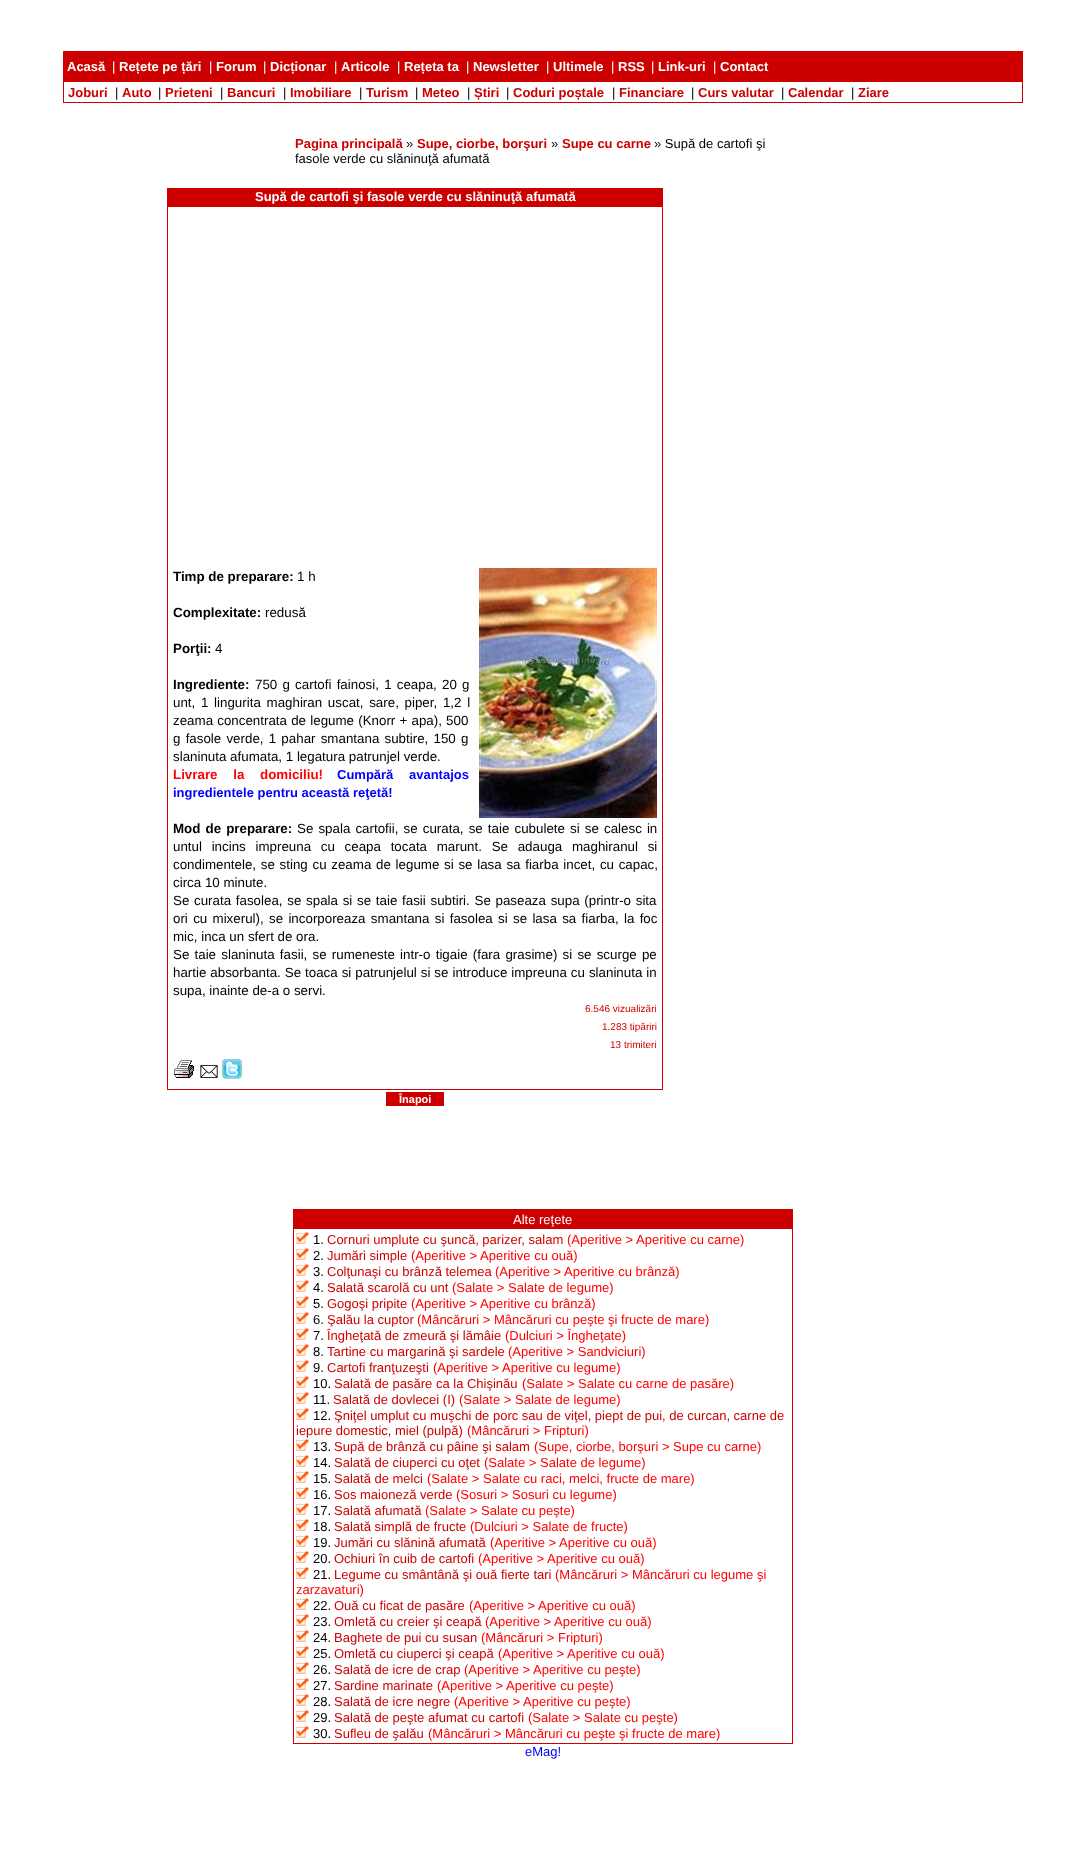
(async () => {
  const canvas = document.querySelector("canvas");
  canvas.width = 1086;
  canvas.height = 1851;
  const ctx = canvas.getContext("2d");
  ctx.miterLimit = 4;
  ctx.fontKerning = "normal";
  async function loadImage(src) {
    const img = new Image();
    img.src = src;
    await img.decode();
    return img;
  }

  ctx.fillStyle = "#ffffff";
  ctx.fillRect(0, 0, 1086, 1851);
  ctx.fillStyle = "#cc0000";
  ctx.fillRect(63, 51, 960, 30);
  ctx.strokeStyle = "#cc0000";
  ctx.strokeRect(63.5, 81.5, 959, 21);
  ctx.fillRect(167, 188, 496, 18);
  ctx.strokeRect(167.5, 206.5, 495, 883);
  ctx.drawImage(await loadImage("img/1.png"), 479, 568, 178, 250);
  ctx.drawImage(await loadImage("img/2.png"), 174, 1060, 20, 18);
  ctx.drawImage(await loadImage("img/3.png"), 200, 1065, 18, 13);
  ctx.drawImage(await loadImage("img/4.png"), 222, 1059, 20, 20);
  ctx.fillRect(386, 1092, 58, 14);
  ctx.strokeRect(293.5, 1209.5, 499, 534);
  ctx.fillRect(294, 1210, 498, 19);
  ctx.drawImage(await loadImage("img/5.png"), 296, 1232, 13, 12);
  ctx.drawImage(await loadImage("img/5.png"), 296, 1248, 13, 12);
  ctx.drawImage(await loadImage("img/5.png"), 296, 1264, 13, 12);
  ctx.drawImage(await loadImage("img/5.png"), 296, 1280, 13, 12);
  ctx.drawImage(await loadImage("img/5.png"), 296, 1296, 13, 12);
  ctx.drawImage(await loadImage("img/5.png"), 296, 1312, 13, 12);
  ctx.drawImage(await loadImage("img/5.png"), 296, 1328, 13, 12);
  ctx.drawImage(await loadImage("img/5.png"), 296, 1344, 13, 12);
  ctx.drawImage(await loadImage("img/5.png"), 296, 1360, 13, 12);
  ctx.drawImage(await loadImage("img/5.png"), 296, 1376, 13, 12);
  ctx.drawImage(await loadImage("img/5.png"), 296, 1392, 13, 12);
  ctx.drawImage(await loadImage("img/5.png"), 296, 1408, 13, 12);
  ctx.drawImage(await loadImage("img/5.png"), 296, 1439, 13, 12);
  ctx.drawImage(await loadImage("img/5.png"), 296, 1455, 13, 12);
  ctx.drawImage(await loadImage("img/5.png"), 296, 1471, 13, 12);
  ctx.drawImage(await loadImage("img/5.png"), 296, 1487, 13, 12);
  ctx.drawImage(await loadImage("img/5.png"), 296, 1503, 13, 12);
  ctx.drawImage(await loadImage("img/5.png"), 296, 1519, 13, 12);
  ctx.drawImage(await loadImage("img/5.png"), 296, 1535, 13, 12);
  ctx.drawImage(await loadImage("img/5.png"), 296, 1551, 13, 12);
  ctx.drawImage(await loadImage("img/5.png"), 296, 1567, 13, 12);
  ctx.drawImage(await loadImage("img/5.png"), 296, 1598, 13, 12);
  ctx.drawImage(await loadImage("img/5.png"), 296, 1614, 13, 12);
  ctx.drawImage(await loadImage("img/5.png"), 296, 1630, 13, 12);
  ctx.drawImage(await loadImage("img/5.png"), 296, 1646, 13, 12);
  ctx.drawImage(await loadImage("img/5.png"), 296, 1662, 13, 12);
  ctx.drawImage(await loadImage("img/5.png"), 296, 1678, 13, 12);
  ctx.drawImage(await loadImage("img/5.png"), 296, 1694, 13, 12);
  ctx.drawImage(await loadImage("img/5.png"), 296, 1710, 13, 12);
  ctx.drawImage(await loadImage("img/5.png"), 296, 1726, 13, 12);
  ctx.font = "bold 13px Liberation Sans";
  ctx.fillStyle = "#ffffff";
  ctx.fillText("Acasă", 67, 71);
  ctx.font = "13px Liberation Sans";
  ctx.fillText("|", 112, 71);
  ctx.font = "bold 13px Liberation Sans";
  ctx.fillText("Rețete pe țări", 119, 71);
  ctx.font = "13px Liberation Sans";
  ctx.fillText("|", 209, 71);
  ctx.font = "bold 13px Liberation Sans";
  ctx.fillText("Forum", 216, 71);
  ctx.font = "13px Liberation Sans";
  ctx.fillText("|", 263, 71);
  ctx.font = "bold 13px Liberation Sans";
  ctx.fillText("Dicționar", 270, 71);
  ctx.font = "13px Liberation Sans";
  ctx.fillText("|", 334, 71);
  ctx.font = "bold 13px Liberation Sans";
  ctx.fillText("Articole", 341, 71);
  ctx.font = "13px Liberation Sans";
  ctx.fillText("|", 397, 71);
  ctx.font = "bold 13px Liberation Sans";
  ctx.fillText("Rețeta ta", 404, 71);
  ctx.font = "13px Liberation Sans";
  ctx.fillText("|", 466, 71);
  ctx.font = "bold 13px Liberation Sans";
  ctx.fillText("Newsletter", 473, 71);
  ctx.font = "13px Liberation Sans";
  ctx.fillText("|", 546, 71);
  ctx.font = "bold 13px Liberation Sans";
  ctx.fillText("Ultimele", 553, 71);
  ctx.font = "13px Liberation Sans";
  ctx.fillText("|", 611, 71);
  ctx.font = "bold 13px Liberation Sans";
  ctx.fillText("RSS", 618, 71);
  ctx.font = "13px Liberation Sans";
  ctx.fillText("|", 651, 71);
  ctx.font = "bold 13px Liberation Sans";
  ctx.fillText("Link-uri", 658, 71);
  ctx.font = "13px Liberation Sans";
  ctx.fillText("|", 713, 71);
  ctx.font = "bold 13px Liberation Sans";
  ctx.fillText("Contact", 720, 71);
  ctx.fillStyle = "#cc0000";
  ctx.fillText("Joburi", 68, 97);
  ctx.font = "13px Liberation Sans";
  ctx.fillStyle = "#000000";
  ctx.fillText("|", 115, 97);
  ctx.font = "bold 13px Liberation Sans";
  ctx.fillStyle = "#cc0000";
  ctx.fillText("Auto", 122, 97);
  ctx.font = "13px Liberation Sans";
  ctx.fillStyle = "#000000";
  ctx.fillText("|", 158, 97);
  ctx.font = "bold 13px Liberation Sans";
  ctx.fillStyle = "#cc0000";
  ctx.fillText("Prieteni", 165, 97);
  ctx.font = "13px Liberation Sans";
  ctx.fillStyle = "#000000";
  ctx.fillText("|", 220, 97);
  ctx.font = "bold 13px Liberation Sans";
  ctx.fillStyle = "#cc0000";
  ctx.fillText("Bancuri", 227, 97);
  ctx.font = "13px Liberation Sans";
  ctx.fillStyle = "#000000";
  ctx.fillText("|", 283, 97);
  ctx.font = "bold 13px Liberation Sans";
  ctx.fillStyle = "#cc0000";
  ctx.fillText("Imobiliare", 290, 97);
  ctx.font = "13px Liberation Sans";
  ctx.fillStyle = "#000000";
  ctx.fillText("|", 359, 97);
  ctx.font = "bold 13px Liberation Sans";
  ctx.fillStyle = "#cc0000";
  ctx.fillText("Turism", 366, 97);
  ctx.font = "13px Liberation Sans";
  ctx.fillStyle = "#000000";
  ctx.fillText("|", 415, 97);
  ctx.font = "bold 13px Liberation Sans";
  ctx.fillStyle = "#cc0000";
  ctx.fillText("Meteo", 422, 97);
  ctx.font = "13px Liberation Sans";
  ctx.fillStyle = "#000000";
  ctx.fillText("|", 467, 97);
  ctx.font = "bold 13px Liberation Sans";
  ctx.fillStyle = "#cc0000";
  ctx.fillText("Știri", 474, 97);
  ctx.font = "13px Liberation Sans";
  ctx.fillStyle = "#000000";
  ctx.fillText("|", 506, 97);
  ctx.font = "bold 13px Liberation Sans";
  ctx.fillStyle = "#cc0000";
  ctx.fillText("Coduri poștale", 513, 97);
  ctx.font = "13px Liberation Sans";
  ctx.fillStyle = "#000000";
  ctx.fillText("|", 612, 97);
  ctx.font = "bold 13px Liberation Sans";
  ctx.fillStyle = "#cc0000";
  ctx.fillText("Financiare", 619, 97);
  ctx.font = "13px Liberation Sans";
  ctx.fillStyle = "#000000";
  ctx.fillText("|", 691, 97);
  ctx.font = "bold 13px Liberation Sans";
  ctx.fillStyle = "#cc0000";
  ctx.fillText("Curs valutar", 698, 97);
  ctx.font = "13px Liberation Sans";
  ctx.fillStyle = "#000000";
  ctx.fillText("|", 781, 97);
  ctx.font = "bold 13px Liberation Sans";
  ctx.fillStyle = "#cc0000";
  ctx.fillText("Calendar", 788, 97);
  ctx.font = "13px Liberation Sans";
  ctx.fillStyle = "#000000";
  ctx.fillText("|", 851, 97);
  ctx.font = "bold 13px Liberation Sans";
  ctx.fillStyle = "#cc0000";
  ctx.fillText("Ziare", 858, 97);
  ctx.fillText("Pagina principală", 295, 148);
  ctx.font = "13px Liberation Sans";
  ctx.fillStyle = "#000000";
  ctx.fillText("»", 406, 148);
  ctx.font = "bold 13px Liberation Sans";
  ctx.fillStyle = "#cc0000";
  ctx.fillText("Supe, ciorbe, borşuri", 417, 148);
  ctx.font = "13px Liberation Sans";
  ctx.fillStyle = "#000000";
  ctx.fillText("»", 551, 148);
  ctx.font = "bold 13px Liberation Sans";
  ctx.fillStyle = "#cc0000";
  ctx.fillText("Supe cu carne", 562, 148);
  ctx.font = "13px Liberation Sans";
  ctx.fillStyle = "#000000";
  ctx.fillText("» Supă de cartofi şi", 654, 148);
  ctx.fillText("fasole verde cu slăninuţă afumată", 295, 163);
  ctx.font = "bold 13px Liberation Sans";
  ctx.fillStyle = "#ffffff";
  ctx.fillText("Supă de cartofi şi fasole verde cu slăninuţă afumată", 255, 201);
  ctx.font = "bold 13.35px Liberation Sans";
  ctx.fillStyle = "#000000";
  ctx.fillText("Timp de preparare:", 173, 581);
  ctx.font = "13.35px Liberation Sans";
  ctx.fillText("1 h", 297, 581);
  ctx.font = "bold 13.35px Liberation Sans";
  ctx.fillText("Complexitate:", 173, 617);
  ctx.font = "13.35px Liberation Sans";
  ctx.fillText("redusă", 265, 617);
  ctx.font = "bold 13.35px Liberation Sans";
  ctx.fillText("Porţii:", 173, 653);
  ctx.font = "13.35px Liberation Sans";
  ctx.fillText("4", 215, 653);
  ctx.font = "bold 13.35px Liberation Sans";
  ctx.fillText("Ingrediente:", 173, 689);
  ctx.wordSpacing = "1.5px";
  ctx.font = "13.35px Liberation Sans";
  ctx.fillText("750 g cartofi fainosi, 1 ceapa, 20 g", 255, 689);
  ctx.wordSpacing = "2px";
  ctx.fillText("unt, 1 lingurita maghiran uscat, sare, piper, 1,2 l", 173, 707);
  ctx.wordSpacing = "0.5px";
  ctx.fillText("zeama concentrata de legume (Knorr + apa), 500", 173, 725);
  ctx.wordSpacing = "1.5px";
  ctx.fillText("g fasole verde, 1 pahar smantana subtire, 150 g", 173, 743);
  ctx.wordSpacing = "0px";
  ctx.fillText("slaninuta afumata, 1 legatura patrunjel verde.", 173, 761);
  ctx.wordSpacing = "12px";
  ctx.font = "bold 13.35px Liberation Sans";
  ctx.fillStyle = "#ff0000";
  ctx.fillText("Livrare la domiciliu!", 173, 779);
  ctx.font = "bold 13px Liberation Sans";
  ctx.fillStyle = "#0000ff";
  ctx.fillText("Cumpără avantajos", 337, 779);
  ctx.wordSpacing = "0px";
  ctx.fillText("ingredientele pentru această reţetă!", 173, 797);
  ctx.wordSpacing = "1.4px";
  ctx.font = "bold 13.35px Liberation Sans";
  ctx.fillStyle = "#000000";
  ctx.fillText("Mod de preparare:", 173, 833);
  ctx.font = "13.35px Liberation Sans";
  ctx.fillText("Se spala cartofii, se curata, se taie cubulete si se calesc in", 297, 833);
  ctx.wordSpacing = "6px";
  ctx.fillText("untul incins impreuna cu ceapa tocata marunt. Se adauga maghiranul si", 173, 851);
  ctx.wordSpacing = "1px";
  ctx.fillText("condimentele, se sting cu zeama de legume si se lasa sa fiarba incet, cu capac,", 173, 869);
  ctx.wordSpacing = "0px";
  ctx.fillText("circa 10 minute.", 173, 887);
  ctx.wordSpacing = "1px";
  ctx.fillText("Se curata fasolea, se spala si se taie fasii subtiri. Se paseaza supa (printr-o sita", 173, 905);
  ctx.wordSpacing = "1.6px";
  ctx.fillText("ori cu mixerul), se incorporeaza smantana si fasolea si se lasa sa fiarba, la foc", 173, 923);
  ctx.wordSpacing = "0px";
  ctx.fillText("mic, inca un sfert de ora.", 173, 941);
  ctx.wordSpacing = "1.5px";
  ctx.fillText("Se taie slaninuta fasii, se rumeneste intr-o tigaie (fara grasime) si se scurge pe", 173, 959);
  ctx.wordSpacing = "0.25px";
  ctx.fillText("hartie absorbanta. Se toaca si patrunjelul si se introduce impreuna cu slaninuta in", 173, 977);
  ctx.wordSpacing = "0px";
  ctx.fillText("supa, inainte de-a o servi.", 173, 995);
  ctx.font = "10px Liberation Sans";
  ctx.fillStyle = "#cc0000";
  for (const [text, x, y] of [
    ["6.546 vizualizări", 585, 1012],
    ["1.283 tipăriri", 602, 1030],
    ["13 trimiteri", 610, 1048],
  ]) {
    ctx.fillText(text, x, y);
  }
  ctx.font = "bold 11px Liberation Sans";
  ctx.fillStyle = "#ffffff";
  ctx.fillText("Înapoi", 399, 1103);
  ctx.font = "13px Liberation Sans";
  ctx.fillText("Alte reţete", 513, 1224);
  ctx.fillStyle = "#000000";
  ctx.fillText("1.", 313, 1244);
  ctx.fillStyle = "#cc0000";
  ctx.fillText("Cornuri umplute cu şuncă, parizer, salam", 327, 1244);
  ctx.fillStyle = "#ff0000";
  ctx.fillText("(Aperitive > Aperitive cu carne)", 567, 1244);
  ctx.fillStyle = "#000000";
  ctx.fillText("2.", 313, 1260);
  ctx.fillStyle = "#cc0000";
  ctx.fillText("Jumări simple", 327, 1260);
  ctx.fillStyle = "#ff0000";
  ctx.fillText("(Aperitive > Aperitive cu ouă)", 411, 1260);
  ctx.fillStyle = "#000000";
  ctx.fillText("3.", 313, 1276);
  ctx.fillStyle = "#cc0000";
  ctx.fillText("Colţunaşi cu brânză telemea", 327, 1276);
  ctx.fillStyle = "#ff0000";
  ctx.fillText("(Aperitive > Aperitive cu brânză)", 495, 1276);
  ctx.fillStyle = "#000000";
  ctx.fillText("4.", 313, 1292);
  ctx.fillStyle = "#cc0000";
  ctx.fillText("Salată scarolă cu unt", 327, 1292);
  ctx.fillStyle = "#ff0000";
  ctx.fillText("(Salate > Salate de legume)", 452, 1292);
  ctx.fillStyle = "#000000";
  ctx.fillText("5.", 313, 1308);
  ctx.fillStyle = "#cc0000";
  ctx.fillText("Gogoşi pripite", 327, 1308);
  ctx.fillStyle = "#ff0000";
  ctx.fillText("(Aperitive > Aperitive cu brânză)", 411, 1308);
  ctx.fillStyle = "#000000";
  ctx.fillText("6.", 313, 1324);
  ctx.fillStyle = "#cc0000";
  ctx.fillText("Şalău la cuptor", 327, 1324);
  ctx.fillStyle = "#ff0000";
  ctx.fillText("(Mâncăruri > Mâncăruri cu peşte şi fructe de mare)", 417, 1324);
  ctx.fillStyle = "#000000";
  ctx.fillText("7.", 313, 1340);
  ctx.fillStyle = "#cc0000";
  ctx.fillText("Îngheţată de zmeură şi lămâie", 327, 1340);
  ctx.fillStyle = "#ff0000";
  ctx.fillText("(Dulciuri > Îngheţate)", 505, 1340);
  ctx.fillStyle = "#000000";
  ctx.fillText("8.", 313, 1356);
  ctx.fillStyle = "#cc0000";
  ctx.fillText("Tartine cu margarină şi sardele", 327, 1356);
  ctx.fillStyle = "#ff0000";
  ctx.fillText("(Aperitive > Sandviciuri)", 508, 1356);
  ctx.fillStyle = "#000000";
  ctx.fillText("9.", 313, 1372);
  ctx.fillStyle = "#cc0000";
  ctx.fillText("Cartofi franţuzeşti", 327, 1372);
  ctx.fillStyle = "#ff0000";
  ctx.fillText("(Aperitive > Aperitive cu legume)", 433, 1372);
  ctx.fillStyle = "#000000";
  ctx.fillText("10.", 313, 1388);
  ctx.fillStyle = "#cc0000";
  ctx.fillText("Salată de pasăre ca la Chişinău", 334, 1388);
  ctx.fillStyle = "#ff0000";
  ctx.fillText("(Salate > Salate cu carne de pasăre)", 522, 1388);
  ctx.fillStyle = "#000000";
  ctx.fillText("11.", 313, 1404);
  ctx.fillStyle = "#cc0000";
  ctx.fillText("Salată de dovlecei (I)", 333, 1404);
  ctx.fillStyle = "#ff0000";
  ctx.fillText("(Salate > Salate de legume)", 459, 1404);
  ctx.fillStyle = "#000000";
  ctx.fillText("12.", 313, 1420);
  ctx.fillStyle = "#cc0000";
  ctx.fillText("Şniţel umplut cu muşchi de porc sau de viţel, piept de pui, de curcan, carne de", 334, 1420);
  ctx.fillText("iepure domestic, miel (pulpă)", 296, 1435);
  ctx.fillStyle = "#ff0000";
  ctx.fillText("(Mâncăruri > Fripturi)", 467, 1435);
  ctx.fillStyle = "#000000";
  ctx.fillText("13.", 313, 1451);
  ctx.fillStyle = "#cc0000";
  ctx.fillText("Supă de brânză cu pâine şi salam", 334, 1451);
  ctx.fillStyle = "#ff0000";
  ctx.fillText("(Supe, ciorbe, borşuri > Supe cu carne)", 534, 1451);
  ctx.fillStyle = "#000000";
  ctx.fillText("14.", 313, 1467);
  ctx.fillStyle = "#cc0000";
  ctx.fillText("Salată de ciuperci cu oţet", 334, 1467);
  ctx.fillStyle = "#ff0000";
  ctx.fillText("(Salate > Salate de legume)", 484, 1467);
  ctx.fillStyle = "#000000";
  ctx.fillText("15.", 313, 1483);
  ctx.fillStyle = "#cc0000";
  ctx.fillText("Salată de melci", 334, 1483);
  ctx.fillStyle = "#ff0000";
  ctx.fillText("(Salate > Salate cu raci, melci, fructe de mare)", 427, 1483);
  ctx.fillStyle = "#000000";
  ctx.fillText("16.", 313, 1499);
  ctx.fillStyle = "#cc0000";
  ctx.fillText("Sos maioneză verde", 334, 1499);
  ctx.fillStyle = "#ff0000";
  ctx.fillText("(Sosuri > Sosuri cu legume)", 456, 1499);
  ctx.fillStyle = "#000000";
  ctx.fillText("17.", 313, 1515);
  ctx.fillStyle = "#cc0000";
  ctx.fillText("Salată afumată", 334, 1515);
  ctx.fillStyle = "#ff0000";
  ctx.fillText("(Salate > Salate cu peşte)", 425, 1515);
  ctx.fillStyle = "#000000";
  ctx.fillText("18.", 313, 1531);
  ctx.fillStyle = "#cc0000";
  ctx.fillText("Salată simplă de fructe", 334, 1531);
  ctx.fillStyle = "#ff0000";
  ctx.fillText("(Dulciuri > Salate de fructe)", 470, 1531);
  ctx.fillStyle = "#000000";
  ctx.fillText("19.", 313, 1547);
  ctx.fillStyle = "#cc0000";
  ctx.fillText("Jumări cu slănină afumată", 334, 1547);
  ctx.fillStyle = "#ff0000";
  ctx.fillText("(Aperitive > Aperitive cu ouă)", 490, 1547);
  ctx.fillStyle = "#000000";
  ctx.fillText("20.", 313, 1563);
  ctx.fillStyle = "#cc0000";
  ctx.fillText("Ochiuri în cuib de cartofi", 334, 1563);
  ctx.fillStyle = "#ff0000";
  ctx.fillText("(Aperitive > Aperitive cu ouă)", 478, 1563);
  ctx.fillStyle = "#000000";
  ctx.fillText("21.", 313, 1579);
  ctx.fillStyle = "#cc0000";
  ctx.fillText("Legume cu smântână şi ouă fierte tari", 334, 1579);
  ctx.fillStyle = "#ff0000";
  ctx.fillText("(Mâncăruri > Mâncăruri cu legume şi", 555, 1579);
  ctx.fillText("zarzavaturi)", 296, 1594);
  ctx.fillStyle = "#000000";
  ctx.fillText("22.", 313, 1610);
  ctx.fillStyle = "#cc0000";
  ctx.fillText("Ouă cu ficat de pasăre", 334, 1610);
  ctx.fillStyle = "#ff0000";
  ctx.fillText("(Aperitive > Aperitive cu ouă)", 469, 1610);
  ctx.fillStyle = "#000000";
  ctx.fillText("23.", 313, 1626);
  ctx.fillStyle = "#cc0000";
  ctx.fillText("Omletă cu creier şi ceapă", 334, 1626);
  ctx.fillStyle = "#ff0000";
  ctx.fillText("(Aperitive > Aperitive cu ouă)", 485, 1626);
  ctx.fillStyle = "#000000";
  ctx.fillText("24.", 313, 1642);
  ctx.fillStyle = "#cc0000";
  ctx.fillText("Baghete de pui cu susan", 334, 1642);
  ctx.fillStyle = "#ff0000";
  ctx.fillText("(Mâncăruri > Fripturi)", 481, 1642);
  ctx.fillStyle = "#000000";
  ctx.fillText("25.", 313, 1658);
  ctx.fillStyle = "#cc0000";
  ctx.fillText("Omletă cu ciuperci şi ceapă", 334, 1658);
  ctx.fillStyle = "#ff0000";
  ctx.fillText("(Aperitive > Aperitive cu ouă)", 498, 1658);
  ctx.fillStyle = "#000000";
  ctx.fillText("26.", 313, 1674);
  ctx.fillStyle = "#cc0000";
  ctx.fillText("Salată de icre de crap", 334, 1674);
  ctx.fillStyle = "#ff0000";
  ctx.fillText("(Aperitive > Aperitive cu peşte)", 464, 1674);
  ctx.fillStyle = "#000000";
  ctx.fillText("27.", 313, 1690);
  ctx.fillStyle = "#cc0000";
  ctx.fillText("Sardine marinate", 334, 1690);
  ctx.fillStyle = "#ff0000";
  ctx.fillText("(Aperitive > Aperitive cu peşte)", 437, 1690);
  ctx.fillStyle = "#000000";
  ctx.fillText("28.", 313, 1706);
  ctx.fillStyle = "#cc0000";
  ctx.fillText("Salată de icre negre", 334, 1706);
  ctx.fillStyle = "#ff0000";
  ctx.fillText("(Aperitive > Aperitive cu peşte)", 454, 1706);
  ctx.fillStyle = "#000000";
  ctx.fillText("29.", 313, 1722);
  ctx.fillStyle = "#cc0000";
  ctx.fillText("Salată de peşte afumat cu cartofi", 334, 1722);
  ctx.fillStyle = "#ff0000";
  ctx.fillText("(Salate > Salate cu peşte)", 528, 1722);
  ctx.fillStyle = "#000000";
  ctx.fillText("30.", 313, 1738);
  ctx.fillStyle = "#cc0000";
  ctx.fillText("Sufleu de şalău", 334, 1738);
  ctx.fillStyle = "#ff0000";
  ctx.fillText("(Mâncăruri > Mâncăruri cu peşte şi fructe de mare)", 428, 1738);
  ctx.fillStyle = "#0000ff";
  ctx.fillText("eMag!", 525, 1756);
})();
